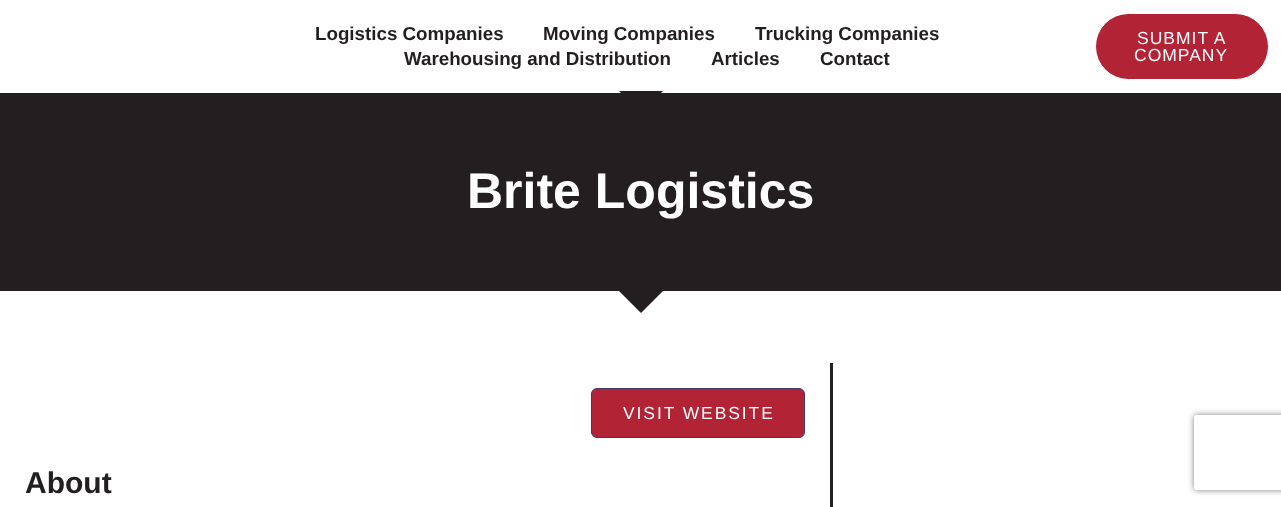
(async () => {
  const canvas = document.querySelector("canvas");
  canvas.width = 1281;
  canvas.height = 507;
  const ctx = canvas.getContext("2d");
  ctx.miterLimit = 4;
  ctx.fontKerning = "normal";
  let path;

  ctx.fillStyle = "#ffffff";
  ctx.fillRect(0, 0, 1281, 507);
  ctx.fillStyle = "#b22335";
  ctx.beginPath();
  ctx.roundRect(1095.5, 13.5, 173, 66, 33);
  ctx.fill();
  ctx.strokeStyle = "#ffffff";
  ctx.stroke();
  ctx.fillStyle = "#231f20";
  ctx.fillRect(0, 93, 1281, 220);
  path = new Path2D("M641 113L619 91H663Z");
  ctx.fill(path);
  ctx.fillStyle = "#ffffff";
  path = new Path2D("M663 291L641 313L619 291H-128V313H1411V291");
  ctx.fill(path);
  ctx.fillStyle = "#231f20";
  ctx.fillRect(830, 363, 3, 144);
  ctx.fillStyle = "#b22335";
  ctx.beginPath();
  ctx.roundRect(591.5, 388.5, 213, 49, 5.5);
  ctx.fill();
  ctx.strokeStyle = "#3d3b6e";
  ctx.stroke();
  ctx.save();
  path = new Path2D("M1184 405H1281V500H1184ZM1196.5 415H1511.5C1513 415 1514 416 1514 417.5V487.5C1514 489 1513 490 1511.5 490H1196.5C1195 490 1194 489 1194 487.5V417.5C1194 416 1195 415 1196.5 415Z");
  ctx.clip(path, "evenodd");
  ctx.fillStyle = "#808080";
  ctx.filter = "blur(3px)";
  ctx.beginPath();
  ctx.roundRect(1194, 415, 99, 75, 2.5);
  ctx.fill();
  ctx.filter = "none";
  ctx.restore();
  ctx.font = "bold 18.75px Liberation Sans";
  ctx.fillStyle = "#231f20";
  for (const [text, x, y] of [
    ["Logistics Companies", 315, 40],
    ["Moving Companies", 543, 40],
    ["Trucking Companies", 755, 40],
    ["Warehousing and Distribution", 404, 65],
    ["Articles", 711, 65],
    ["Contact", 820, 65],
  ]) {
    ctx.fillText(text, x, y);
  }
  ctx.letterSpacing = "1px";
  ctx.font = "17.5px Liberation Sans";
  ctx.fillStyle = "#ffffff";
  ctx.fillText("SUBMIT A", 1137, 44);
  ctx.fillText("COMPANY", 1134, 61);
  ctx.letterSpacing = "0px";
  ctx.font = "bold 50px Liberation Sans";
  ctx.fillText("Brite Logistics", 467, 208);
  ctx.letterSpacing = "1.9px";
  ctx.font = "17.5px Liberation Sans";
  ctx.fillText("VISIT WEBSITE", 623, 419);
  ctx.letterSpacing = "0px";
  ctx.font = "bold 30px Liberation Sans";
  ctx.fillStyle = "#231f20";
  ctx.fillText("About", 25, 493);
})();
